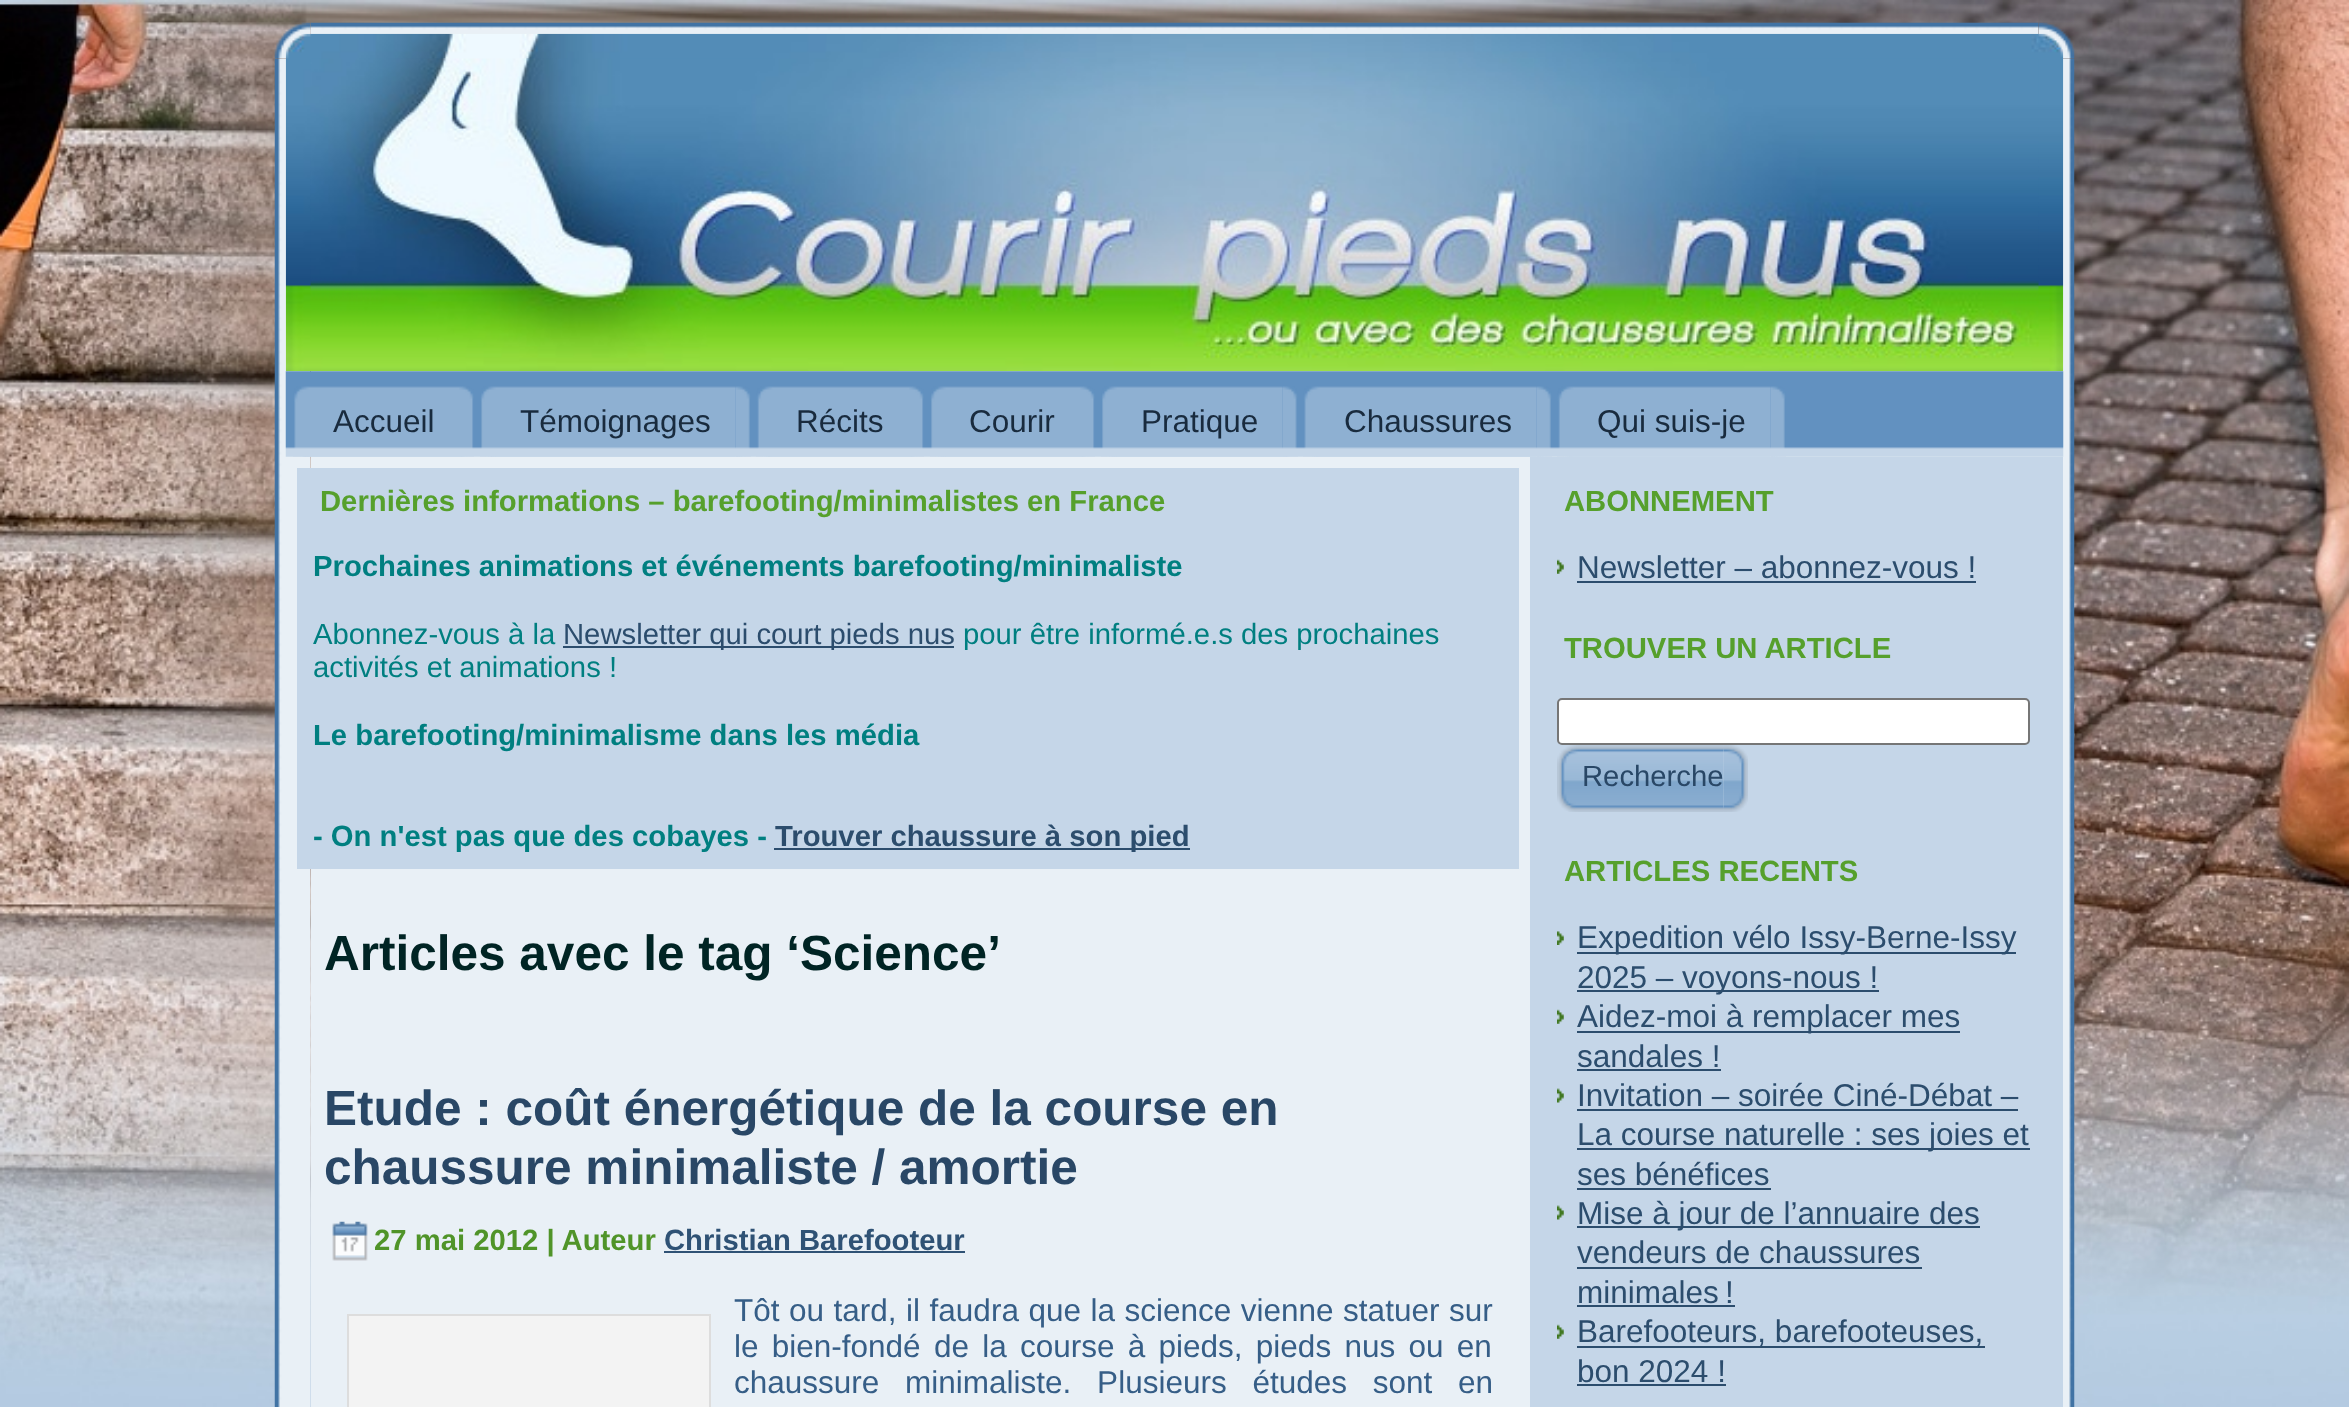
(async () => {
  const canvas = document.querySelector("canvas");
  canvas.width = 2349;
  canvas.height = 1407;
  const ctx = canvas.getContext("2d");
  ctx.miterLimit = 4;
  ctx.fontKerning = "normal";
  async function loadImage(src) {
    const img = new Image();
    img.src = src;
    await img.decode();
    return img;
  }

  ctx.fillStyle = "#ffffff";
  ctx.fillRect(0, 0, 2349, 1407);
  ctx.drawImage(await loadImage("img/1.png"), 0, 0, 2349, 1407);
  ctx.drawImage(await loadImage("img/2.png"), 274, 22, 37, 37);
  ctx.drawImage(await loadImage("img/4.png"), 2038, 22, 37, 37);
  ctx.drawImage(await loadImage("img/3.png"), 310, 22, 1729, 15);
  ctx.drawImage(await loadImage("img/5.png"), 274, 58, 37, 1349);
  ctx.fillStyle = "#e9f0f6";
  ctx.fillRect(311, 371, 1728, 1036);
  ctx.drawImage(await loadImage("img/6.png"), 2039, 58, 36, 1349);
  ctx.drawImage(await loadImage("img/7.png"), 285, 33, 1779, 339);
  ctx.drawImage(await loadImage("img/8.png"), 310, 58, 1729, 289);
  ctx.drawImage(await loadImage("img/9.png"), 285, 371, 1779, 86);
  ctx.drawImage(await loadImage("img/10.png"), 293, 386, 166, 71);
  ctx.drawImage(await loadImage("img/11.png"), 459, 386, 15, 71);
  ctx.drawImage(await loadImage("img/12.png"), 480, 386, 256, 71);
  ctx.drawImage(await loadImage("img/13.png"), 736, 386, 15, 71);
  ctx.drawImage(await loadImage("img/14.png"), 756, 386, 153, 71);
  ctx.drawImage(await loadImage("img/11.png"), 909, 386, 15, 71);
  ctx.drawImage(await loadImage("img/15.png"), 930, 386, 150, 71);
  ctx.drawImage(await loadImage("img/11.png"), 1080, 386, 15, 71);
  ctx.drawImage(await loadImage("img/16.png"), 1101, 386, 182, 71);
  ctx.drawImage(await loadImage("img/17.png"), 1282, 386, 16, 71);
  ctx.drawImage(await loadImage("img/18.png"), 1303, 386, 234, 71);
  ctx.drawImage(await loadImage("img/19.png"), 1537, 386, 15, 71);
  ctx.drawImage(await loadImage("img/20.png"), 1557, 386, 214, 71);
  ctx.drawImage(await loadImage("img/19.png"), 1771, 386, 15, 71);
  for (const [x, y, w, h, color] of [
    [297, 468, 1222, 401, "#c5d6e8"],
    [563, 646, 391, 2, "#2c4d6d"],
    [774, 848, 416, 2, "#2c4d6d"],
  ]) {
    ctx.fillStyle = color;
    ctx.fillRect(x, y, w, h);
  }
  ctx.drawImage(await loadImage("img/21.png"), 332, 1221, 36, 40);
  ctx.fillStyle = "#2f5275";
  ctx.fillRect(664, 1251, 301, 2);
  ctx.fillStyle = "#f3f3f3";
  ctx.beginPath();
  ctx.rect(348, 1315, 362, 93);
  ctx.fill();
  ctx.strokeStyle = "#dddddd";
  ctx.lineWidth = 2;
  ctx.stroke();
  ctx.fillStyle = "#c5d6e8";
  ctx.fillRect(1530, 457, 533, 950);
  ctx.drawImage(await loadImage("img/22.png"), 1557, 559, 7, 15);
  ctx.fillStyle = "#2c4d6d";
  ctx.fillRect(1577, 581, 399, 2);
  ctx.fillStyle = "#ffffff";
  ctx.beginPath();
  ctx.roundRect(1558, 699, 471, 45, 4);
  ctx.fill();
  ctx.strokeStyle = "#767676";
  ctx.stroke();
  ctx.drawImage(await loadImage("img/23.png"), 1557, 745, 167, 67);
  ctx.drawImage(await loadImage("img/24.png"), 1723, 745, 25, 67);
  ctx.drawImage(await loadImage("img/25.png"), 1557, 931, 7, 14);
  ctx.fillStyle = "#2c4d6d";
  ctx.fillRect(1577, 952, 439, 2);
  ctx.fillRect(1577, 990, 302, 2);
  ctx.drawImage(await loadImage("img/22.png"), 1557, 1009, 7, 15);
  ctx.fillRect(1577, 1031, 383, 2);
  ctx.fillRect(1577, 1069, 144, 2);
  ctx.drawImage(await loadImage("img/26.png"), 1557, 1088, 7, 15);
  for (const [x, y, w, h, color] of [
    [1577, 1109, 441, 2, "#2c4d6d"],
    [1577, 1148, 453, 2, "#2c4d6d"],
    [1577, 1188, 194, 2, "#2c4d6d"],
  ]) {
    ctx.fillStyle = color;
    ctx.fillRect(x, y, w, h);
  }
  ctx.drawImage(await loadImage("img/26.png"), 1557, 1205, 7, 15);
  for (const [x, y, w, h, color] of [
    [1577, 1226, 403, 2, "#2c4d6d"],
    [1577, 1267, 345, 2, "#2c4d6d"],
    [1577, 1305, 158, 2, "#2c4d6d"],
  ]) {
    ctx.fillStyle = color;
    ctx.fillRect(x, y, w, h);
  }
  ctx.drawImage(await loadImage("img/22.png"), 1557, 1324, 7, 15);
  ctx.fillRect(1577, 1346, 408, 2);
  ctx.fillRect(1577, 1384, 149, 2);
  ctx.font = "31.5px Liberation Sans";
  ctx.fillStyle = "#192b3e";
  for (const [text, x, y] of [
    ["Accueil", 333, 432],
    ["Témoignages", 520, 432],
    ["Récits", 796, 432],
    ["Courir", 969, 432],
    ["Pratique", 1141, 432],
    ["Chaussures", 1344, 432],
    ["Qui suis-je", 1597, 432],
  ]) {
    ctx.fillText(text, x, y);
  }
  ctx.font = "bold 29.25px Liberation Sans";
  ctx.fillStyle = "#56a02c";
  ctx.fillText("Dernières informations – barefooting/minimalistes en France", 320, 511);
  ctx.fillStyle = "#007f80";
  ctx.fillText("Prochaines animations et événements barefooting/minimaliste", 313, 576);
  ctx.font = "29.25px Liberation Sans";
  ctx.fillText("Abonnez-vous à la", 313, 644);
  ctx.fillStyle = "#2c4d6d";
  ctx.fillText("Newsletter qui court pieds nus", 563, 644);
  ctx.fillStyle = "#007f80";
  ctx.fillText("pour être informé.e.s des prochaines", 963, 644);
  ctx.fillText("activités et animations !", 313, 677);
  ctx.font = "bold 29.25px Liberation Sans";
  ctx.fillText("Le barefooting/minimalisme dans les média", 313, 745);
  ctx.fillText("- On n'est pas que des cobayes -", 313, 846);
  ctx.fillStyle = "#2c4d6d";
  ctx.fillText("Trouver chaussure à son pied", 775, 846);
  ctx.font = "bold 49.5px Liberation Sans";
  ctx.fillStyle = "#002424";
  ctx.fillText("Articles avec le tag ‘Science’", 324, 970);
  ctx.fillStyle = "#294766";
  ctx.fillText("Etude : coût énergétique de la course en", 324, 1125);
  ctx.fillText("chaussure minimaliste / amortie", 324, 1184);
  ctx.font = "bold 29.25px Liberation Sans";
  ctx.fillStyle = "#509429";
  ctx.fillText("27 mai 2012 | Auteur", 374, 1250);
  ctx.fillStyle = "#2f5275";
  ctx.fillText("Christian Barefooteur", 664, 1250);
  ctx.wordSpacing = "0.75px";
  ctx.font = "31.5px Liberation Sans";
  ctx.fillStyle = "#365e87";
  ctx.fillText("Tôt ou tard, il faudra que la science vienne statuer sur", 734, 1321);
  ctx.wordSpacing = "4.5px";
  ctx.fillText("le bien-fondé de la course à pieds, pieds nus ou en", 734, 1357);
  ctx.wordSpacing = "17px";
  ctx.fillText("chaussure minimaliste. Plusieurs études sont en", 734, 1393);
  ctx.wordSpacing = "0px";
  ctx.font = "bold 29.25px Liberation Sans";
  ctx.fillStyle = "#56a02c";
  ctx.fillText("ABONNEMENT", 1564, 511);
  ctx.font = "31.5px Liberation Sans";
  ctx.fillStyle = "#2c4d6d";
  ctx.fillText("Newsletter – abonnez-vous !", 1577, 578);
  ctx.font = "bold 29.25px Liberation Sans";
  ctx.fillStyle = "#56a02c";
  ctx.fillText("TROUVER UN ARTICLE", 1564, 658);
  ctx.font = "29.25px Liberation Sans";
  ctx.fillStyle = "#294766";
  ctx.fillText("Recherche", 1582, 786);
  ctx.font = "bold 29.25px Liberation Sans";
  ctx.fillStyle = "#56a02c";
  ctx.fillText("ARTICLES RECENTS", 1564, 881);
  ctx.font = "31.5px Liberation Sans";
  ctx.fillStyle = "#2c4d6d";
  for (const [text, x, y] of [
    ["Expedition vélo Issy-Berne-Issy", 1577, 948],
    ["2025 – voyons-nous !", 1577, 988],
    ["Aidez-moi à remplacer mes", 1577, 1027],
    ["sandales !", 1577, 1067],
    ["Invitation – soirée Ciné-Débat –", 1577, 1106],
    ["La course naturelle : ses joies et", 1577, 1145],
    ["ses bénéfices", 1577, 1185],
    ["Mise à jour de l’annuaire des", 1577, 1224],
    ["vendeurs de chaussures", 1577, 1263],
    ["minimales !", 1577, 1303],
    ["Barefooteurs, barefooteuses,", 1577, 1342],
    ["bon 2024 !", 1577, 1382],
  ]) {
    ctx.fillText(text, x, y);
  }
})();
